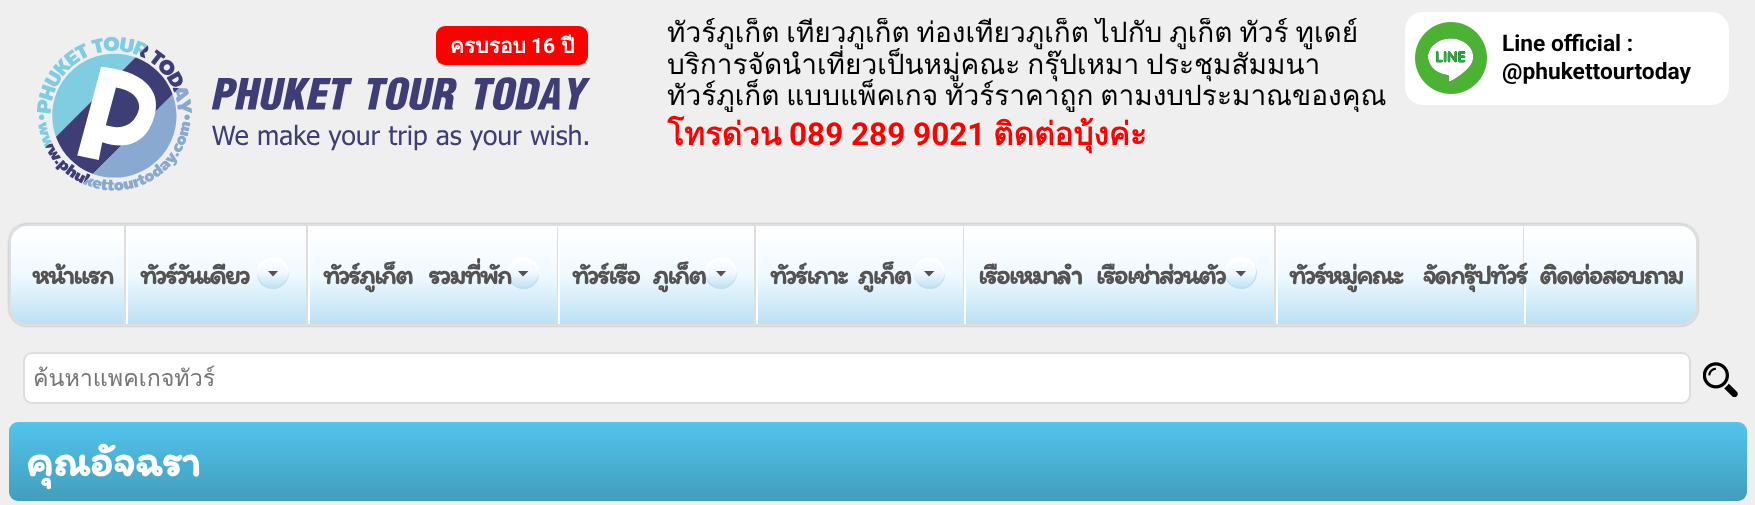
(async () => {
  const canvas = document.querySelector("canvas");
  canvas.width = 1755;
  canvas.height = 505;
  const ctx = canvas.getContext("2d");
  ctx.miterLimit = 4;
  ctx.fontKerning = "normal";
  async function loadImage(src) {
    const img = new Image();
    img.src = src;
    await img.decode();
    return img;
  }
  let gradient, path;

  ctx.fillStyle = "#efefef";
  ctx.fillRect(0, 0, 1755, 505);
  ctx.fillStyle = "#ff0000";
  ctx.beginPath();
  ctx.roundRect(436, 26, 152, 39, 9);
  ctx.fill();
  ctx.fillStyle = "#ffffff";
  ctx.beginPath();
  ctx.roundRect(1405, 12, 324, 93, 18);
  ctx.fill();
  ctx.drawImage(await loadImage("img/2.png"), 1415, 22, 72, 72);
  ctx.fillStyle = "rgba(0, 0, 0, 0.3)";
  ctx.filter = "blur(1px)";
  ctx.beginPath();
  ctx.roundRect(9, 224, 1689, 102, 18);
  ctx.fill();
  ctx.filter = "none";
  ctx.save();
  ctx.beginPath();
  ctx.roundRect(9, 224, 1689, 102, 18);
  ctx.clip();
  gradient = ctx.createLinearGradient(853, 226, 853, 324);
  gradient.addColorStop(0.01, "#ffffff");
  gradient.addColorStop(0.5, "#f0f9ff");
  gradient.addColorStop(0.99, "#bce1f3");
  ctx.fillStyle = gradient;
  ctx.fillRect(9, 226, 1689, 98);
  ctx.restore();
  ctx.beginPath();
  ctx.roundRect(10, 225, 1687, 100, 17);
  ctx.strokeStyle = "#dedede";
  ctx.lineWidth = 2;
  ctx.stroke();
  for (const [x, y, w, h, color] of [
    [124, 226, 2, 98, "#dedede"],
    [306, 226, 2, 98, "#dedede"],
    [126, 235, 2, 89, "#ffffff"],
  ]) {
    ctx.fillStyle = color;
    ctx.fillRect(x, y, w, h);
  }
  gradient = ctx.createLinearGradient(289, 257, 289, 320);
  gradient.addColorStop(0, "#ffffff");
  gradient.addColorStop(0.25, "#f1f9ff");
  gradient.addColorStop(0.5, "#bce1f3");
  gradient.addColorStop(0.75, "#ffffff");
  gradient.addColorStop(1, "#f1f9ff");
  ctx.fillStyle = gradient;
  ctx.beginPath();
  ctx.arc(273, 273, 16, 0, Math.PI * 2);
  ctx.fill();
  ctx.fillStyle = "#ffffff";
  path = new Path2D("M273 261C283 261 288.5 268.5 288.5 276C289.5 272 288.5 267.5 286.5 264C276.5 249.5 254 259 257.5 276C257.5 268.5 263 261 273 261Z");
  ctx.fill(path);
  ctx.fillStyle = "#bce1f3";
  path = new Path2D("M257.5 269.5C256.5 274 257.5 278.5 259.5 282C269.5 296.5 292 286.5 288.5 269.5C291 292.5 255 292.5 257.5 269.5Z");
  ctx.fill(path);
  ctx.fillStyle = "#535353";
  path = new Path2D("M268 271H278L273 276.5Z");
  ctx.fill(path);
  ctx.fillStyle = "#dedede";
  ctx.fillRect(557, 226, 1, 98);
  ctx.fillStyle = "#ffffff";
  ctx.fillRect(308, 235, 2, 89);
  gradient = ctx.createLinearGradient(539, 257, 539, 320);
  gradient.addColorStop(0, "#ffffff");
  gradient.addColorStop(0.25, "#f1f9ff");
  gradient.addColorStop(0.5, "#bce1f3");
  gradient.addColorStop(0.75, "#ffffff");
  gradient.addColorStop(1, "#f1f9ff");
  ctx.fillStyle = gradient;
  ctx.beginPath();
  ctx.roundRect(508, 257, 31, 32, 15.5);
  ctx.fill();
  ctx.fillStyle = "#ffffff";
  path = new Path2D("M523 261C533.5 261 538.5 268.5 538.5 276.5C539.5 272 539 267.5 536.5 264C527 250 506.5 258.5 508 275C508.5 267.5 513.5 261 523 261Z");
  ctx.fill(path);
  ctx.fillStyle = "#bce1f3";
  path = new Path2D("M508 272C507.5 290 531 295.5 538 279.5C539 276 539.5 272 538.5 268.5C542.5 290.5 508.5 294 508 272Z");
  ctx.fill(path);
  ctx.fillStyle = "#535353";
  path = new Path2D("M518 271H528.5L523 276.5Z");
  ctx.fill(path);
  ctx.fillStyle = "#dedede";
  ctx.fillRect(754, 226, 2, 98);
  ctx.fillStyle = "#ffffff";
  ctx.fillRect(558, 235, 2, 89);
  gradient = ctx.createLinearGradient(737, 257, 737, 320);
  gradient.addColorStop(0, "#ffffff");
  gradient.addColorStop(0.25, "#f1f9ff");
  gradient.addColorStop(0.5, "#bce1f3");
  gradient.addColorStop(0.75, "#ffffff");
  gradient.addColorStop(1, "#f1f9ff");
  ctx.fillStyle = gradient;
  ctx.beginPath();
  ctx.arc(721, 273, 16, 0, Math.PI * 2);
  ctx.fill();
  ctx.fillStyle = "#ffffff";
  path = new Path2D("M721 261C731 261 736.5 268.5 736.5 276C737.5 272 736.5 267.5 734.5 264C724.5 249.5 702 259 705.5 276C705.5 268.5 711 261 721 261Z");
  ctx.fill(path);
  ctx.fillStyle = "#bce1f3";
  path = new Path2D("M705.5 269.5C704.5 274 705.5 278.5 707.5 282C717.5 296.5 740 286.5 736.5 269.5C739 292.5 703 292.5 705.5 269.5Z");
  ctx.fill(path);
  ctx.fillStyle = "#535353";
  path = new Path2D("M716 271H726L721 276.5Z");
  ctx.fill(path);
  ctx.fillStyle = "#dedede";
  ctx.fillRect(963, 226, 1, 98);
  ctx.fillStyle = "#ffffff";
  ctx.fillRect(756, 235, 2, 89);
  gradient = ctx.createLinearGradient(945, 257, 945, 320);
  gradient.addColorStop(0, "#ffffff");
  gradient.addColorStop(0.25, "#f1f9ff");
  gradient.addColorStop(0.5, "#bce1f3");
  gradient.addColorStop(0.75, "#ffffff");
  gradient.addColorStop(1, "#f1f9ff");
  ctx.fillStyle = gradient;
  ctx.beginPath();
  ctx.roundRect(914, 257, 31, 32, 15.5);
  ctx.fill();
  ctx.fillStyle = "#ffffff";
  path = new Path2D("M929 261C939.5 261 944.5 268.5 944.5 276.5C945.5 272 945 267.5 942.5 264C933 250 912.5 258.5 914 275C914.5 267.5 919.5 261 929 261Z");
  ctx.fill(path);
  ctx.fillStyle = "#bce1f3";
  path = new Path2D("M914 272C913.5 290 937 295.5 944 279.5C945 276 945.5 272 944.5 268.5C948.5 290.5 914.5 294 914 272Z");
  ctx.fill(path);
  ctx.fillStyle = "#535353";
  path = new Path2D("M924 271H934.5L929 276.5Z");
  ctx.fill(path);
  ctx.fillStyle = "#dedede";
  ctx.fillRect(1274, 226, 2, 98);
  ctx.fillStyle = "#ffffff";
  ctx.fillRect(964, 235, 2, 89);
  gradient = ctx.createLinearGradient(1257, 257, 1257, 320);
  gradient.addColorStop(0, "#ffffff");
  gradient.addColorStop(0.25, "#f1f9ff");
  gradient.addColorStop(0.5, "#bce1f3");
  gradient.addColorStop(0.75, "#ffffff");
  gradient.addColorStop(1, "#f1f9ff");
  ctx.fillStyle = gradient;
  ctx.beginPath();
  ctx.arc(1241, 273, 16, 0, Math.PI * 2);
  ctx.fill();
  ctx.fillStyle = "#ffffff";
  path = new Path2D("M1241 261C1252 261 1257 270.5 1256 279C1263 261.5 1238.5 248 1227.5 264C1225.5 267.5 1224.5 272 1225.5 276C1225.5 268.5 1231 261 1241 261Z");
  ctx.fill(path);
  ctx.fillStyle = "#bce1f3";
  path = new Path2D("M1225.5 269.5C1224.5 274 1225.5 278.5 1227.5 282C1229.5 284.5 1232 286.5 1235 287.5C1249.5 294 1262.5 277.5 1254.5 264.5C1258.5 273.5 1254 287 1241 287C1229.5 287 1224.5 278 1225.5 269.5Z");
  ctx.fill(path);
  ctx.fillStyle = "#535353";
  path = new Path2D("M1235.5 271H1246L1241 276.5Z");
  ctx.fill(path);
  for (const [x, y, w, h, color] of [
    [1523, 226, 1, 98, "#dedede"],
    [1276, 235, 2, 89, "#ffffff"],
    [1524, 235, 2, 89, "#ffffff"],
  ]) {
    ctx.fillStyle = color;
    ctx.fillRect(x, y, w, h);
  }
  ctx.beginPath();
  ctx.roundRect(24, 353, 1666, 50, 8);
  ctx.fill();
  ctx.strokeStyle = "#dddddd";
  ctx.stroke();
  ctx.drawImage(await loadImage("img/3.png"), 1703, 362, 35, 35);
  gradient = ctx.createLinearGradient(878, 422, 878, 501);
  gradient.addColorStop(0, "#53c4ec");
  gradient.addColorStop(1, "#429dbd");
  ctx.fillStyle = gradient;
  ctx.beginPath();
  ctx.roundRect(9, 422, 1738, 79, 9);
  ctx.fill();
  ctx.font = "bold 21px Loma";
  ctx.fillStyle = "#ffffff";
  ctx.fillText("ครบรอบ", 450, 53);
  ctx.font = "bold 21px Roboto";
  ctx.fillText("16", 531, 53);
  ctx.font = "bold 21px Loma";
  ctx.fillText("ปี", 561, 53);
  ctx.drawImage(await loadImage("img/1.png"), 37, 36, 554, 155);
  ctx.save();
  ctx.beginPath();
  ctx.rect(667, 18, 1088, 94);
  ctx.clip();
  ctx.wordSpacing = "-2.5px";
  ctx.font = "28px Loma";
  ctx.fillStyle = "#000000";
  ctx.fillText("ทัวร์ภูเก็ต เที่ยวภูเก็ต ท่องเที่ยวภูเก็ต ไปกับ ภูเก็ต ทัวร์ ทูเดย์", 667, 42);
  ctx.restore();
  ctx.wordSpacing = "-2.5px";
  ctx.font = "28px Loma";
  ctx.fillStyle = "#000000";
  ctx.fillText("บริการจัดนำเที่ยวเป็นหมู่คณะ กรุ๊ปเหมา ประชุมสัมมนา", 667, 74);
  ctx.save();
  ctx.beginPath();
  ctx.rect(667, 18, 1088, 94);
  ctx.clip();
  ctx.fillText("ทัวร์ภูเก็ต แบบแพ็คเกจ ทัวร์ราคาถูก ตามงบประมาณของคุณ", 667, 105);
  ctx.restore();
  ctx.wordSpacing = "0px";
  ctx.font = "bold 22.75px Roboto";
  ctx.fillText("Line official :", 1502, 51);
  ctx.fillText("@phukettourtoday", 1502, 79);
  ctx.font = "bold 31.5px Loma";
  ctx.fillStyle = "#ff0000";
  ctx.fillText("โทรด่วน", 667, 145);
  ctx.font = "bold 31.5px Roboto";
  ctx.fillText("089 289 9021", 789, 145);
  ctx.font = "bold 31.5px Loma";
  ctx.fillText("ติดต่อบุ้งค่ะ", 993, 145);
  ctx.letterSpacing = "-1.75px";
  ctx.font = "bold 27.5px Itim";
  ctx.fillStyle = "#535353";
  ctx.fillText("หน้าแรก", 32, 284);
  ctx.fillText("ทัวร์วันเดียว", 140, 284);
  ctx.wordSpacing = "12px";
  ctx.fillText("ทัวร์ภูเก็ต รวมที่พัก", 323, 284);
  ctx.wordSpacing = "9px";
  ctx.fillText("ทัวร์เรือ ภูเก็ต", 572, 284);
  ctx.wordSpacing = "7px";
  ctx.fillText("ทัวร์เกาะ ภูเก็ต", 770, 284);
  ctx.wordSpacing = "10px";
  ctx.fillText("เรือเหมาลำ เรือเช่าส่วนตัว", 978, 284);
  ctx.wordSpacing = "16px";
  ctx.fillText("ทัวร์หมู่คณะ จัดกรุ๊ปทัวร์", 1289, 284);
  ctx.wordSpacing = "0px";
  ctx.fillText("ติดต่อสอบถาม", 1539, 284);
  ctx.save();
  ctx.beginPath();
  ctx.rect(33, 361, 1624, 36);
  ctx.clip();
  ctx.letterSpacing = "0px";
  ctx.font = "23.25px Loma";
  ctx.fillStyle = "#757575";
  ctx.fillText("ค้นหาแพคเกจทัวร์", 33, 386);
  ctx.restore();
  ctx.letterSpacing = "0px";
  ctx.font = "bold 44px Itim";
  ctx.fillStyle = "#ffffff";
  ctx.fillText("คุณอัจฉรา", 26, 476);
})();
